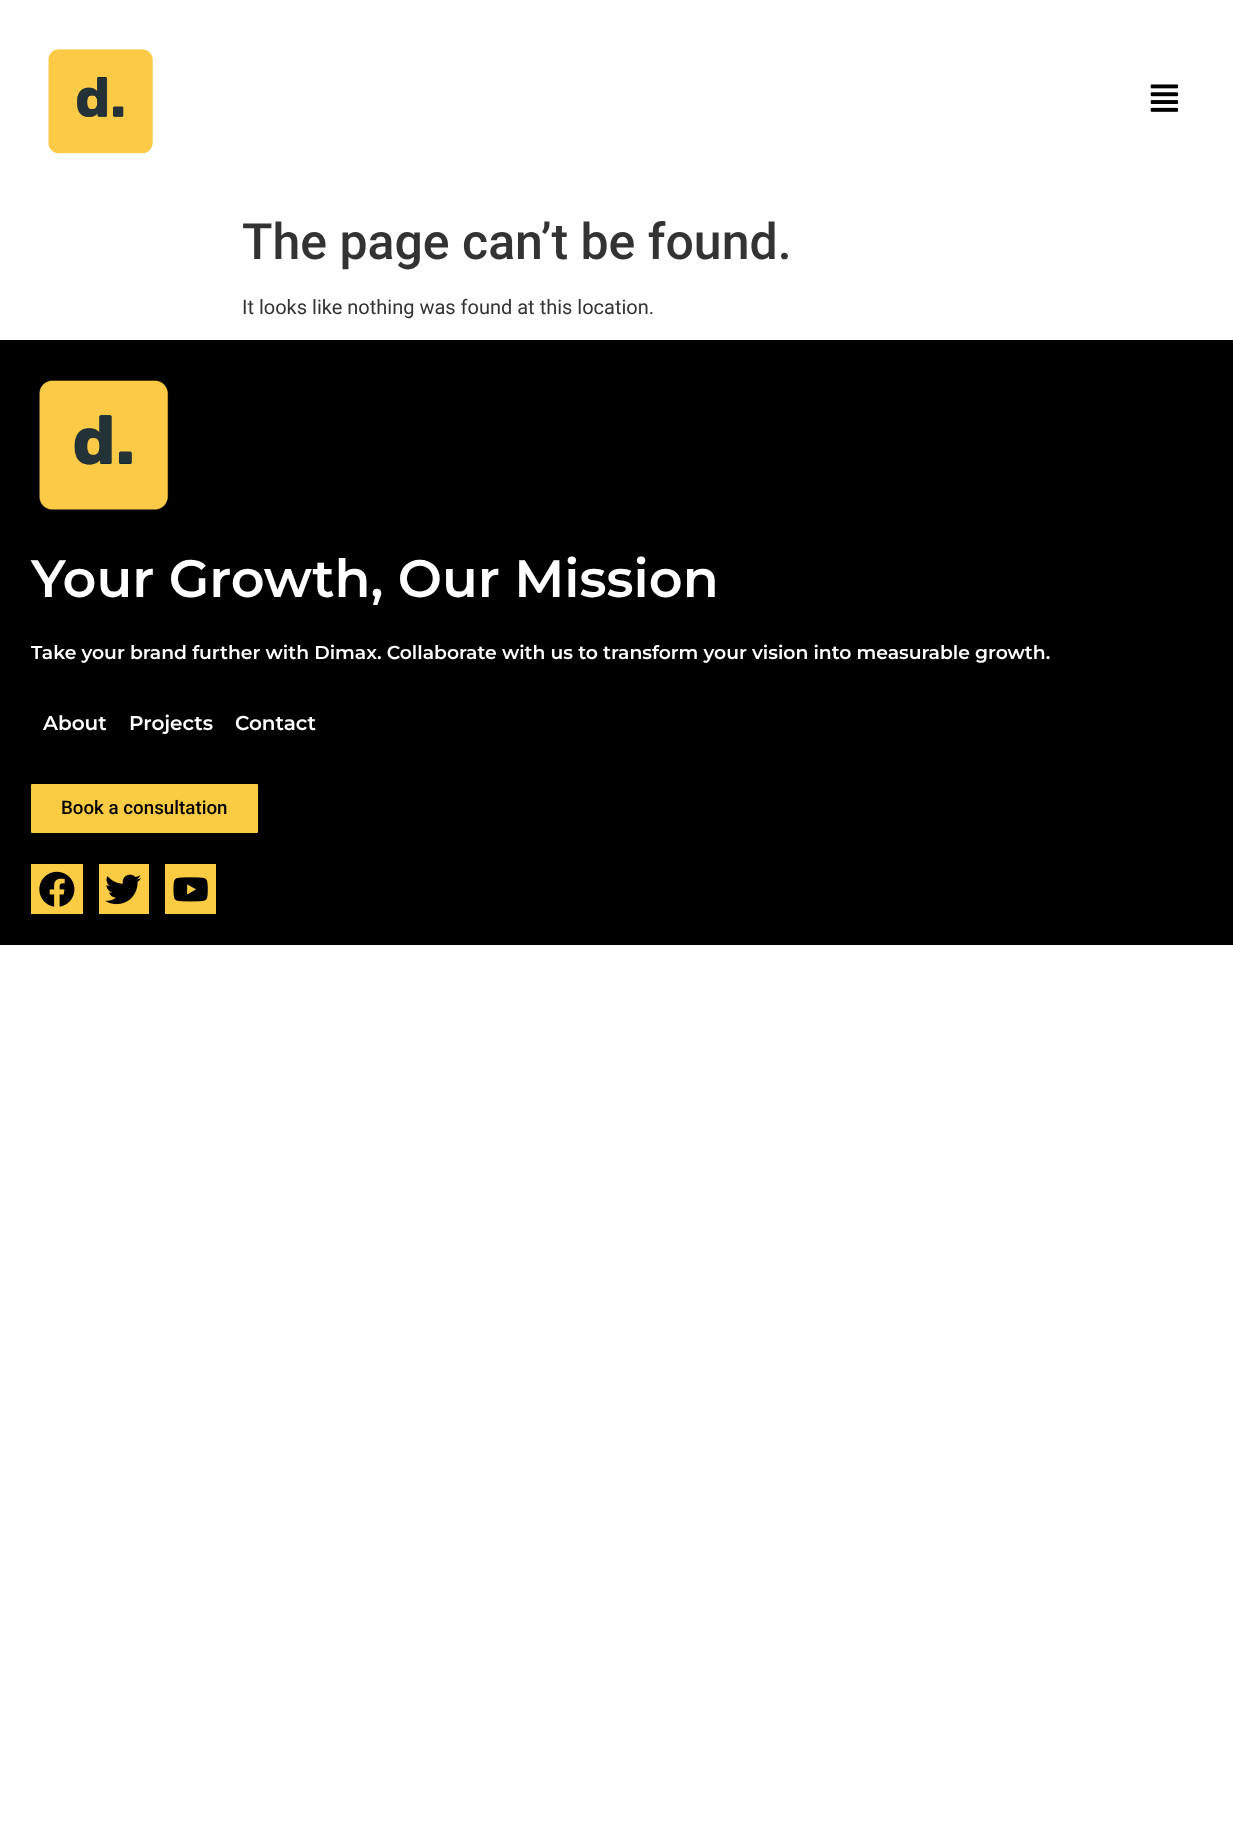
(async () => {
  const canvas = document.querySelector("canvas");
  canvas.width = 1233;
  canvas.height = 1828;
  const ctx = canvas.getContext("2d");
  ctx.miterLimit = 4;
  ctx.fontKerning = "normal";
  async function loadImage(src) {
    const img = new Image();
    img.src = src;
    await img.decode();
    return img;
  }

  ctx.fillStyle = "#ffffff";
  ctx.fillRect(0, 0, 1233, 1828);
  ctx.drawImage(await loadImage("img/1.png"), 48, 49, 105, 105);
  ctx.drawImage(await loadImage("img/2.png"), 1150, 84, 29, 28);
  ctx.fillStyle = "#000000";
  ctx.fillRect(0, 340, 1233, 605);
  ctx.drawImage(await loadImage("img/3.png"), 39, 380, 130, 130);
  ctx.fillStyle = "#fbcb43";
  ctx.beginPath();
  ctx.roundRect(31, 784, 227, 49, 1);
  ctx.fill();
  ctx.fillStyle = "#fbcb44";
  ctx.fillRect(31, 864, 52, 50);
  ctx.drawImage(await loadImage("img/4.png"), 39, 871, 36, 36);
  ctx.fillRect(99, 864, 50, 50);
  ctx.drawImage(await loadImage("img/5.png"), 105, 874, 36, 31);
  ctx.fillRect(165, 864, 51, 50);
  ctx.drawImage(await loadImage("img/6.png"), 173, 877, 35, 25);
  ctx.font = "500 50px Roboto";
  ctx.fillStyle = "#333333";
  ctx.fillText("The page can’t be found.", 242, 259);
  ctx.font = "20px Roboto";
  ctx.fillText("It looks like nothing was found at this location.", 242, 314);
  ctx.font = "600 52.5px Montserrat";
  ctx.fillStyle = "#ffffff";
  ctx.fillText("Your Growth, Our Mission", 31, 597);
  ctx.font = "600 18.75px Montserrat";
  ctx.fillText("Take your brand further with Dimax. Collaborate with us to transform your vision into measurable growth.", 31, 659);
  ctx.font = "600 20px Montserrat";
  for (const [text, x, y] of [
    ["About", 43, 730],
    ["Projects", 129, 730],
    ["Contact", 235, 730],
  ]) {
    ctx.fillText(text, x, y);
  }
  ctx.font = "500 18.75px Roboto";
  ctx.fillStyle = "#000000";
  ctx.fillText("Book a consultation", 61, 814);
})();
